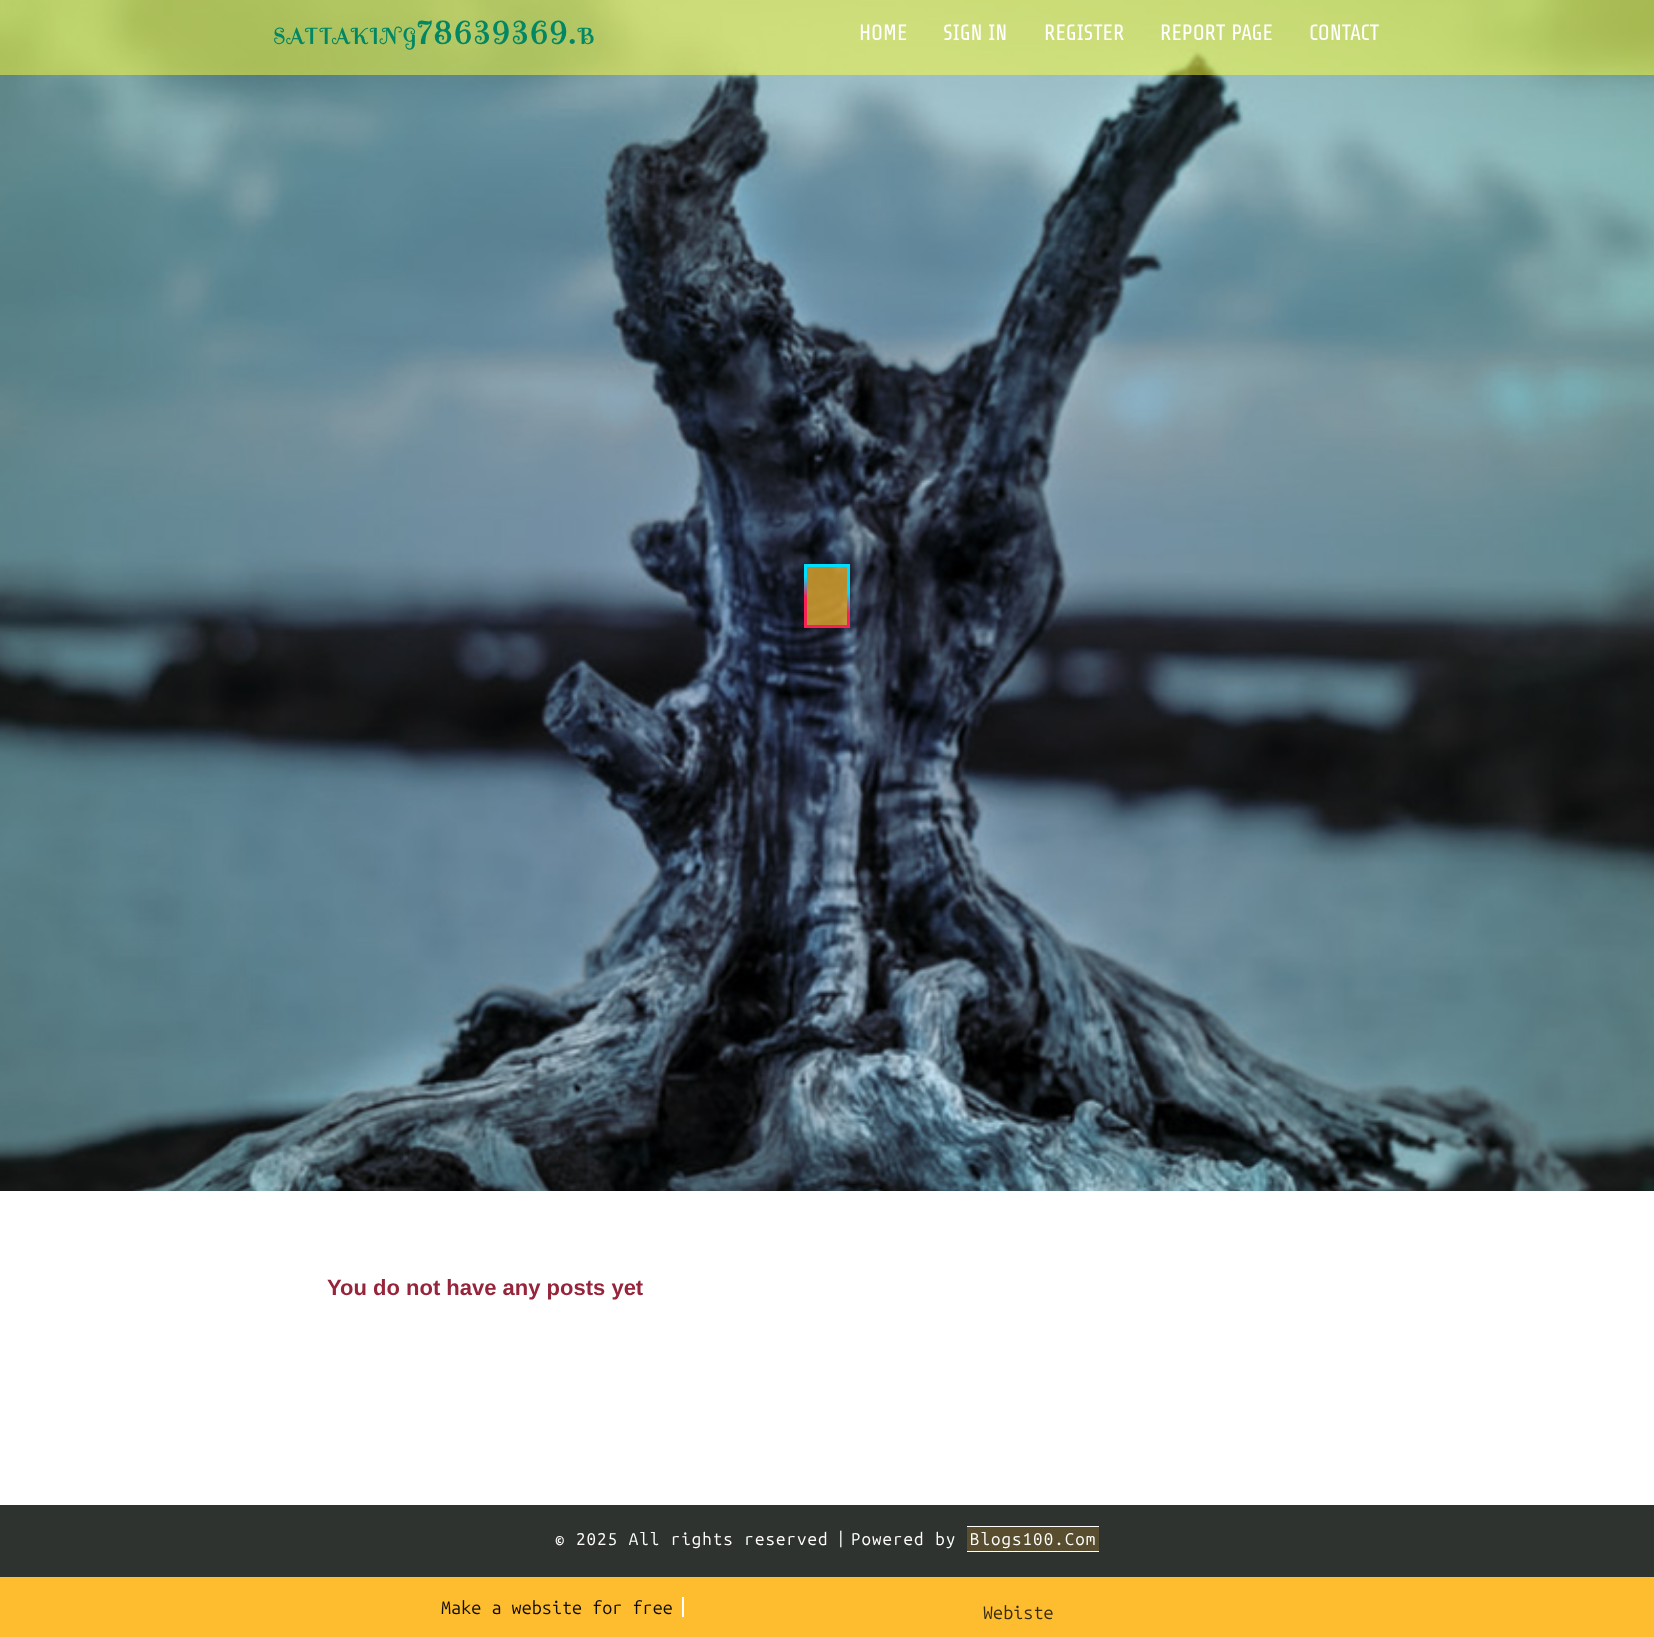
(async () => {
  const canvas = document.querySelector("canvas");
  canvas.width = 1654;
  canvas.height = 1637;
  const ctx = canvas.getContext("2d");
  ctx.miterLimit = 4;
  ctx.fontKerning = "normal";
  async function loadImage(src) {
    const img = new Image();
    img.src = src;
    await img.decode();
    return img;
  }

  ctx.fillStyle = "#ffffff";
  ctx.fillRect(0, 0, 1654, 1637);
  ctx.drawImage(await loadImage("img/1.png"), 0, 0, 1654, 1191);
  ctx.fillStyle = "rgba(255, 255, 47, 0.5)";
  ctx.fillRect(0, 0, 1654, 75);
  ctx.fillStyle = "rgba(254, 188, 47, 0.7)";
  ctx.fillRect(807, 567, 40, 58);
  ctx.drawImage(await loadImage("img/2.png"), 804, 564, 46, 64);
  for (const [x, y, w, h, color] of [
    [0, 1505, 1654, 72, "#2f332f"],
    [967, 1527, 132, 24, "#584e2f"],
    [967, 1526, 132, 1, "#ffffff"],
    [967, 1551, 132, 1, "#ffffff"],
    [0, 1577, 1654, 60, "#febc2f"],
    [682, 1597, 2, 20, "#ffffff"],
  ]) {
    ctx.fillStyle = color;
    ctx.fillRect(x, y, w, h);
  }
  ctx.letterSpacing = "2px";
  ctx.font = "bold 22.5px Spirax";
  ctx.fillStyle = "#018763";
  ctx.fillText("SATTAKING", 273, 44);
  ctx.font = "bold 32px Spirax";
  ctx.fillText("78639369.", 417, 44);
  ctx.font = "bold 22.5px Spirax";
  ctx.fillText("B", 578, 44);
  ctx.letterSpacing = "0px";
  ctx.font = "22px Share Tech";
  ctx.fillStyle = "#ffffff";
  for (const [text, x, y] of [
    ["HOME", 859, 40],
    ["SIGN IN", 943, 40],
    ["REGISTER", 1044, 40],
    ["REPORT PAGE", 1160, 40],
    ["CONTACT", 1309, 40],
  ]) {
    ctx.fillText(text, x, y);
  }
  ctx.font = "bold 22px Liberation Sans";
  ctx.fillStyle = "#96243a";
  ctx.fillText("You do not have any posts yet", 327, 1295);
  ctx.letterSpacing = "1px";
  ctx.font = "17px Ubuntu Mono";
  ctx.fillStyle = "#ffffff";
  for (const [text, x, y] of [
    ["© 2025 All rights reserved", 555, 1545],
    ["|", 836, 1544],
    ["Powered by", 851, 1545],
    ["Blogs100.Com", 970, 1545],
  ]) {
    ctx.fillText(text, x, y);
  }
  ctx.letterSpacing = "0px";
  ctx.font = "18px Ubuntu Mono";
  ctx.fillStyle = "#0d0d0d";
  ctx.fillText("Make a website for free", 441, 1614);
  ctx.fillStyle = "#362b13";
  ctx.fillText("Webiste", 983, 1619);
})();
